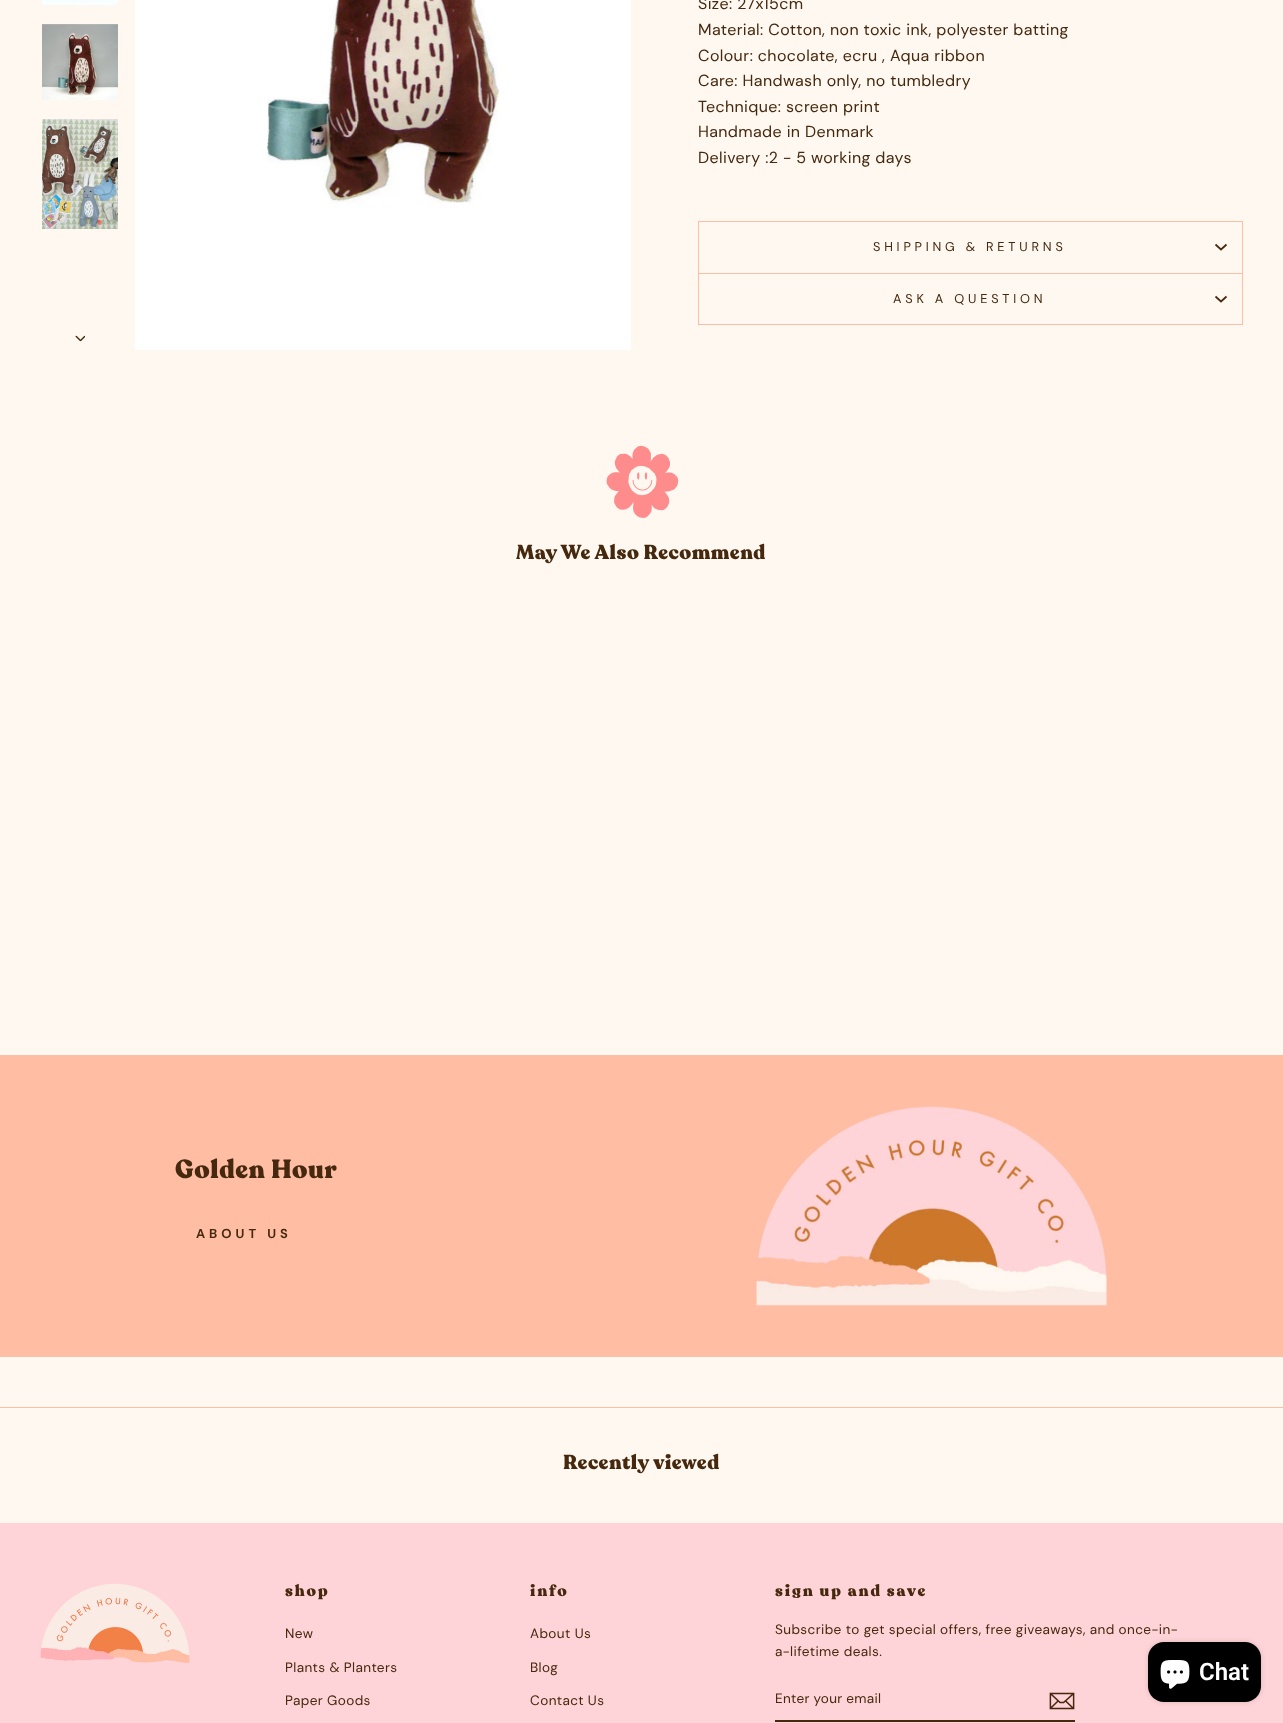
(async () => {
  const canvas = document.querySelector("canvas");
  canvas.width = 1283;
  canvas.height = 1723;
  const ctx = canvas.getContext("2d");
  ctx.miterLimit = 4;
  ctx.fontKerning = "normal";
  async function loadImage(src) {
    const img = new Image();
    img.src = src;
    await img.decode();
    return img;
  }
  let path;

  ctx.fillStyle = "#fff8f0";
  ctx.fillRect(0, 0, 1283, 1723);
  ctx.drawImage(await loadImage("img/1.png"), 42, 0, 76, 5);
  ctx.drawImage(await loadImage("img/2.png"), 42, 24, 76, 76);
  ctx.drawImage(await loadImage("img/3.png"), 42, 119, 76, 110);
  ctx.drawImage(await loadImage("img/4.png"), 75, 335, 10, 7);
  ctx.drawImage(await loadImage("img/5.png"), 135, 0, 496, 350);
  for (const [x, y, w, h, color] of [
    [698, 273, 545, 1, "#ffbda3"],
    [698, 221, 545, 1, "#ffbda3"],
    [1242, 221, 1, 52, "#ffbda3"],
    [698, 221, 1, 52, "#ffbda3"],
  ]) {
    ctx.fillStyle = color;
    ctx.fillRect(x, y, w, h);
  }
  path = new Path2D("M1215.5 244.5L1221 249.5L1226.5 244.5");
  ctx.strokeStyle = "#45280d";
  ctx.lineWidth = 1.7;
  ctx.stroke(path);
  for (const [x, y, w, h, color] of [
    [698, 324, 545, 1, "#ffbda3"],
    [1242, 274, 1, 50, "#ffbda3"],
    [698, 274, 1, 50, "#ffbda3"],
  ]) {
    ctx.fillStyle = color;
    ctx.fillRect(x, y, w, h);
  }
  path = new Path2D("M1215.5 296.5L1221 301.5L1226.5 296.5");
  ctx.stroke(path);
  ctx.drawImage(await loadImage("img/6.png"), 606, 445, 73, 73);
  ctx.fillRect(0, 1055, 1283, 302);
  ctx.drawImage(await loadImage("img/7.png"), 756, 1106, 351, 200);
  ctx.fillRect(0, 1407, 1283, 1);
  ctx.fillStyle = "#ffd4d8";
  ctx.fillRect(0, 1523, 1283, 200);
  ctx.drawImage(await loadImage("img/8.png"), 40, 1583, 150, 80);
  ctx.fillStyle = "#45280d";
  ctx.fillRect(775, 1720, 300, 2);
  ctx.drawImage(await loadImage("img/9.png"), 1049, 1692, 26, 18);
  ctx.fillStyle = "rgba(0, 0, 0, 0.15)";
  ctx.filter = "blur(2.5px)";
  ctx.beginPath();
  ctx.roundRect(1148, 1642, 113, 60, 16);
  ctx.fill();
  ctx.filter = "none";
  ctx.fillStyle = "#000000";
  ctx.beginPath();
  ctx.roundRect(1148, 1642, 113, 60, 16);
  ctx.fill();
  ctx.drawImage(await loadImage("img/10.png"), 1160, 1660, 30, 29);
  ctx.letterSpacing = "0.4px";
  ctx.font = "16px DM Sans";
  ctx.fillStyle = "#45280d";
  for (const [text, x, y] of [
    ["Size: 27x15cm", 698, 9],
    ["Material: Cotton, non toxic ink, polyester batting", 698, 35],
    ["Colour: chocolate, ecru , Aqua ribbon", 698, 61],
    ["Care: Handwash only, no tumbledry", 698, 86],
    ["Technique: screen print", 698, 112],
    ["Handmade in Denmark", 698, 137],
    ["Delivery :2 - 5 working days", 698, 163],
  ]) {
    ctx.fillText(text, x, y);
  }
  ctx.letterSpacing = "3.8px";
  ctx.font = "12.75px DM Sans";
  ctx.fillText("SHIPPING & RETURNS", 873, 251);
  ctx.fillText("ASK A QUESTION", 893, 303);
  ctx.letterSpacing = "0.5px";
  ctx.font = "900 20.1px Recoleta";
  ctx.fillText("May We Also Recommend", 516, 559);
  ctx.letterSpacing = "0.6px";
  ctx.font = "900 26px Recoleta";
  ctx.fillText("Golden Hour", 175, 1178);
  ctx.letterSpacing = "4px";
  ctx.font = "bold 13px DM Sans";
  ctx.fillText("ABOUT US", 196, 1238);
  ctx.letterSpacing = "0.5px";
  ctx.font = "900 20.1px Recoleta";
  ctx.fillText("Recently viewed", 563, 1469);
  ctx.letterSpacing = "1.9px";
  ctx.font = "900 16px Recoleta";
  ctx.fillText("shop", 285, 1596);
  ctx.letterSpacing = "0.4px";
  ctx.font = "13.6px DM Sans";
  for (const [text, x, y] of [
    ["New", 285, 1638],
    ["Plants & Planters", 285, 1672],
    ["Paper Goods", 285, 1705],
  ]) {
    ctx.fillText(text, x, y);
  }
  ctx.letterSpacing = "1.9px";
  ctx.font = "900 16px Recoleta";
  ctx.fillText("info", 530, 1596);
  ctx.letterSpacing = "0.4px";
  ctx.font = "13.6px DM Sans";
  for (const [text, x, y] of [
    ["About Us", 530, 1638],
    ["Blog", 530, 1672],
    ["Contact Us", 530, 1705],
  ]) {
    ctx.fillText(text, x, y);
  }
  ctx.letterSpacing = "1.9px";
  ctx.font = "900 16px Recoleta";
  ctx.fillText("sign up and save", 775, 1596);
  ctx.letterSpacing = "0.4px";
  ctx.font = "13.6px DM Sans";
  ctx.fillText("Subscribe to get special offers, free giveaways, and once-in-", 775, 1634);
  ctx.fillText("a-lifetime deals.", 775, 1656);
  ctx.letterSpacing = "0.3px";
  ctx.fillText("Enter your email", 775, 1703);
  ctx.letterSpacing = "0px";
  ctx.font = "600 24px Roboto";
  ctx.fillStyle = "#ffffff";
  ctx.fillText("Chat", 1199, 1680);
})();
